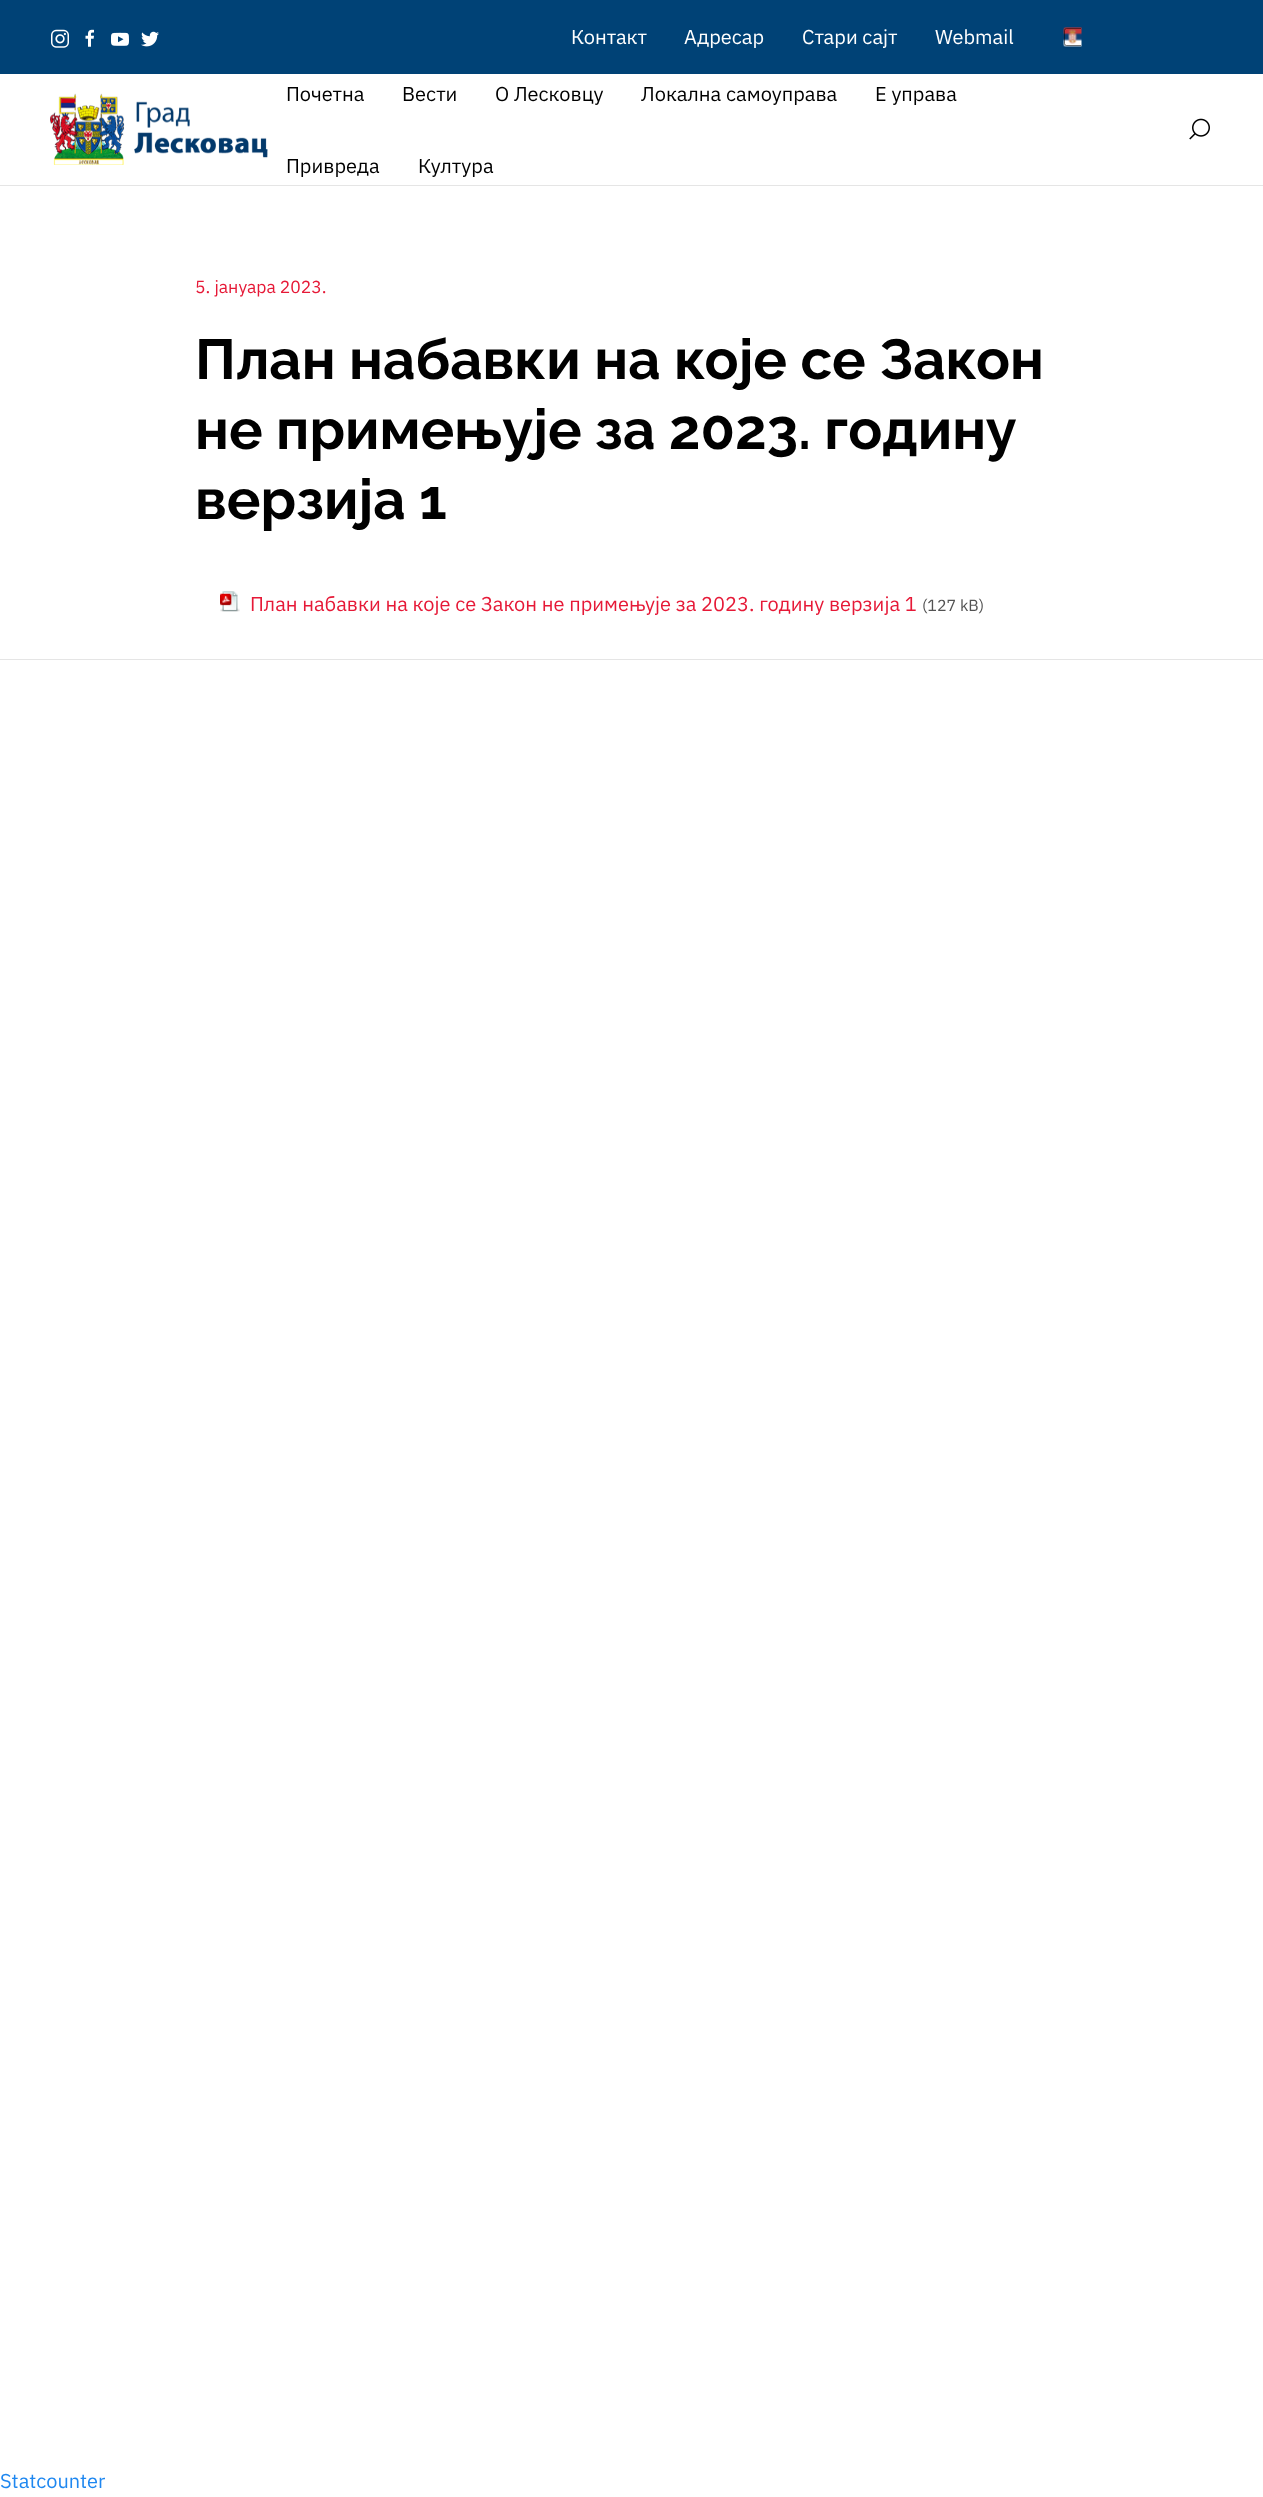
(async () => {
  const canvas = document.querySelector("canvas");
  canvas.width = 1263;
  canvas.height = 2497;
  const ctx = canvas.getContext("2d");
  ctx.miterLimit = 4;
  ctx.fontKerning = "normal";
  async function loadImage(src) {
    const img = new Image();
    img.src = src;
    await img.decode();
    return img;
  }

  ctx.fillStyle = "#ffffff";
  ctx.fillRect(0, 0, 1263, 2497);
  ctx.fillStyle = "#004276";
  ctx.fillRect(0, 0, 1263, 74);
  ctx.drawImage(await loadImage("img/1.png"), 51, 29, 18, 19);
  ctx.drawImage(await loadImage("img/2.png"), 85, 29, 9, 18);
  ctx.drawImage(await loadImage("img/3.png"), 111, 32, 18, 14);
  ctx.drawImage(await loadImage("img/4.png"), 141, 31, 18, 16);
  ctx.save();
  ctx.beginPath();
  ctx.rect(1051, 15, 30, 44);
  ctx.clip();
  ctx.fillStyle = "rgba(0, 0, 0, 0.1)";
  ctx.filter = "blur(1px)";
  ctx.beginPath();
  ctx.roundRect(1064, 29, 25, 19, 2);
  ctx.fill();
  ctx.filter = "none";
  ctx.restore();
  ctx.drawImage(await loadImage("img/5.png"), 1063, 27, 19, 20);
  ctx.save();
  ctx.beginPath();
  ctx.rect(1051, 15, 30, 44);
  ctx.clip();
  ctx.beginPath();
  ctx.roundRect(1064.5, 28.5, 24, 17, 2);
  ctx.strokeStyle = "rgba(0, 0, 0, 0.5)";
  ctx.stroke();
  ctx.restore();
  ctx.fillStyle = "#e5e5e5";
  ctx.fillRect(0, 185, 1263, 1);
  ctx.drawImage(await loadImage("img/6.png"), 50, 93, 218, 72);
  ctx.drawImage(await loadImage("img/7.png"), 1189, 118, 21, 22);
  ctx.drawImage(await loadImage("img/8.png"), 220, 591, 20, 21);
  ctx.fillRect(0, 659, 1263, 1);
  ctx.font = "20px IBM Plex Sans";
  ctx.fillStyle = "#ffffff";
  for (const [text, x, y] of [
    ["Контакт", 571, 44],
    ["Адресар", 684, 44],
    ["Стари сајт", 802, 44],
    ["Webmail", 935, 44],
  ]) {
    ctx.fillText(text, x, y);
  }
  ctx.fillStyle = "#000000";
  for (const [text, x, y] of [
    ["Почетна", 286, 101],
    ["Вести", 402, 101],
    ["О Лесковцу", 495, 101],
    ["Локална самоуправа", 641, 101],
    ["Е управа", 875, 101],
    ["Привреда", 286, 173],
    ["Култура", 418, 173],
  ]) {
    ctx.fillText(text, x, y);
  }
  ctx.font = "17.5px IBM Plex Sans";
  ctx.fillStyle = "#e61937";
  ctx.fillText("5. јануара 2023.", 195, 293);
  ctx.font = "100 56.25px Raleway";
  ctx.fillStyle = "#000000";
  for (const [text, x, y] of [
    ["План набавки на које се Закон", 195, 379],
    ["не примењује за 2023. годину", 195, 449],
    ["верзија 1", 195, 519],
  ]) {
    ctx.fillText(text, x, y);
  }
  ctx.font = "20px IBM Plex Sans";
  ctx.fillStyle = "#e61937";
  ctx.fillText("План набавки на које се Закон не примењује за 2023. годину верзија 1", 250, 611);
  ctx.font = "16px IBM Plex Sans";
  ctx.fillStyle = "#535353";
  ctx.fillText("(127 kB)", 922, 611);
  ctx.font = "20px IBM Plex Sans";
  ctx.fillStyle = "#1e87f0";
  ctx.fillText("Statcounter", 0, 2488);
})();
